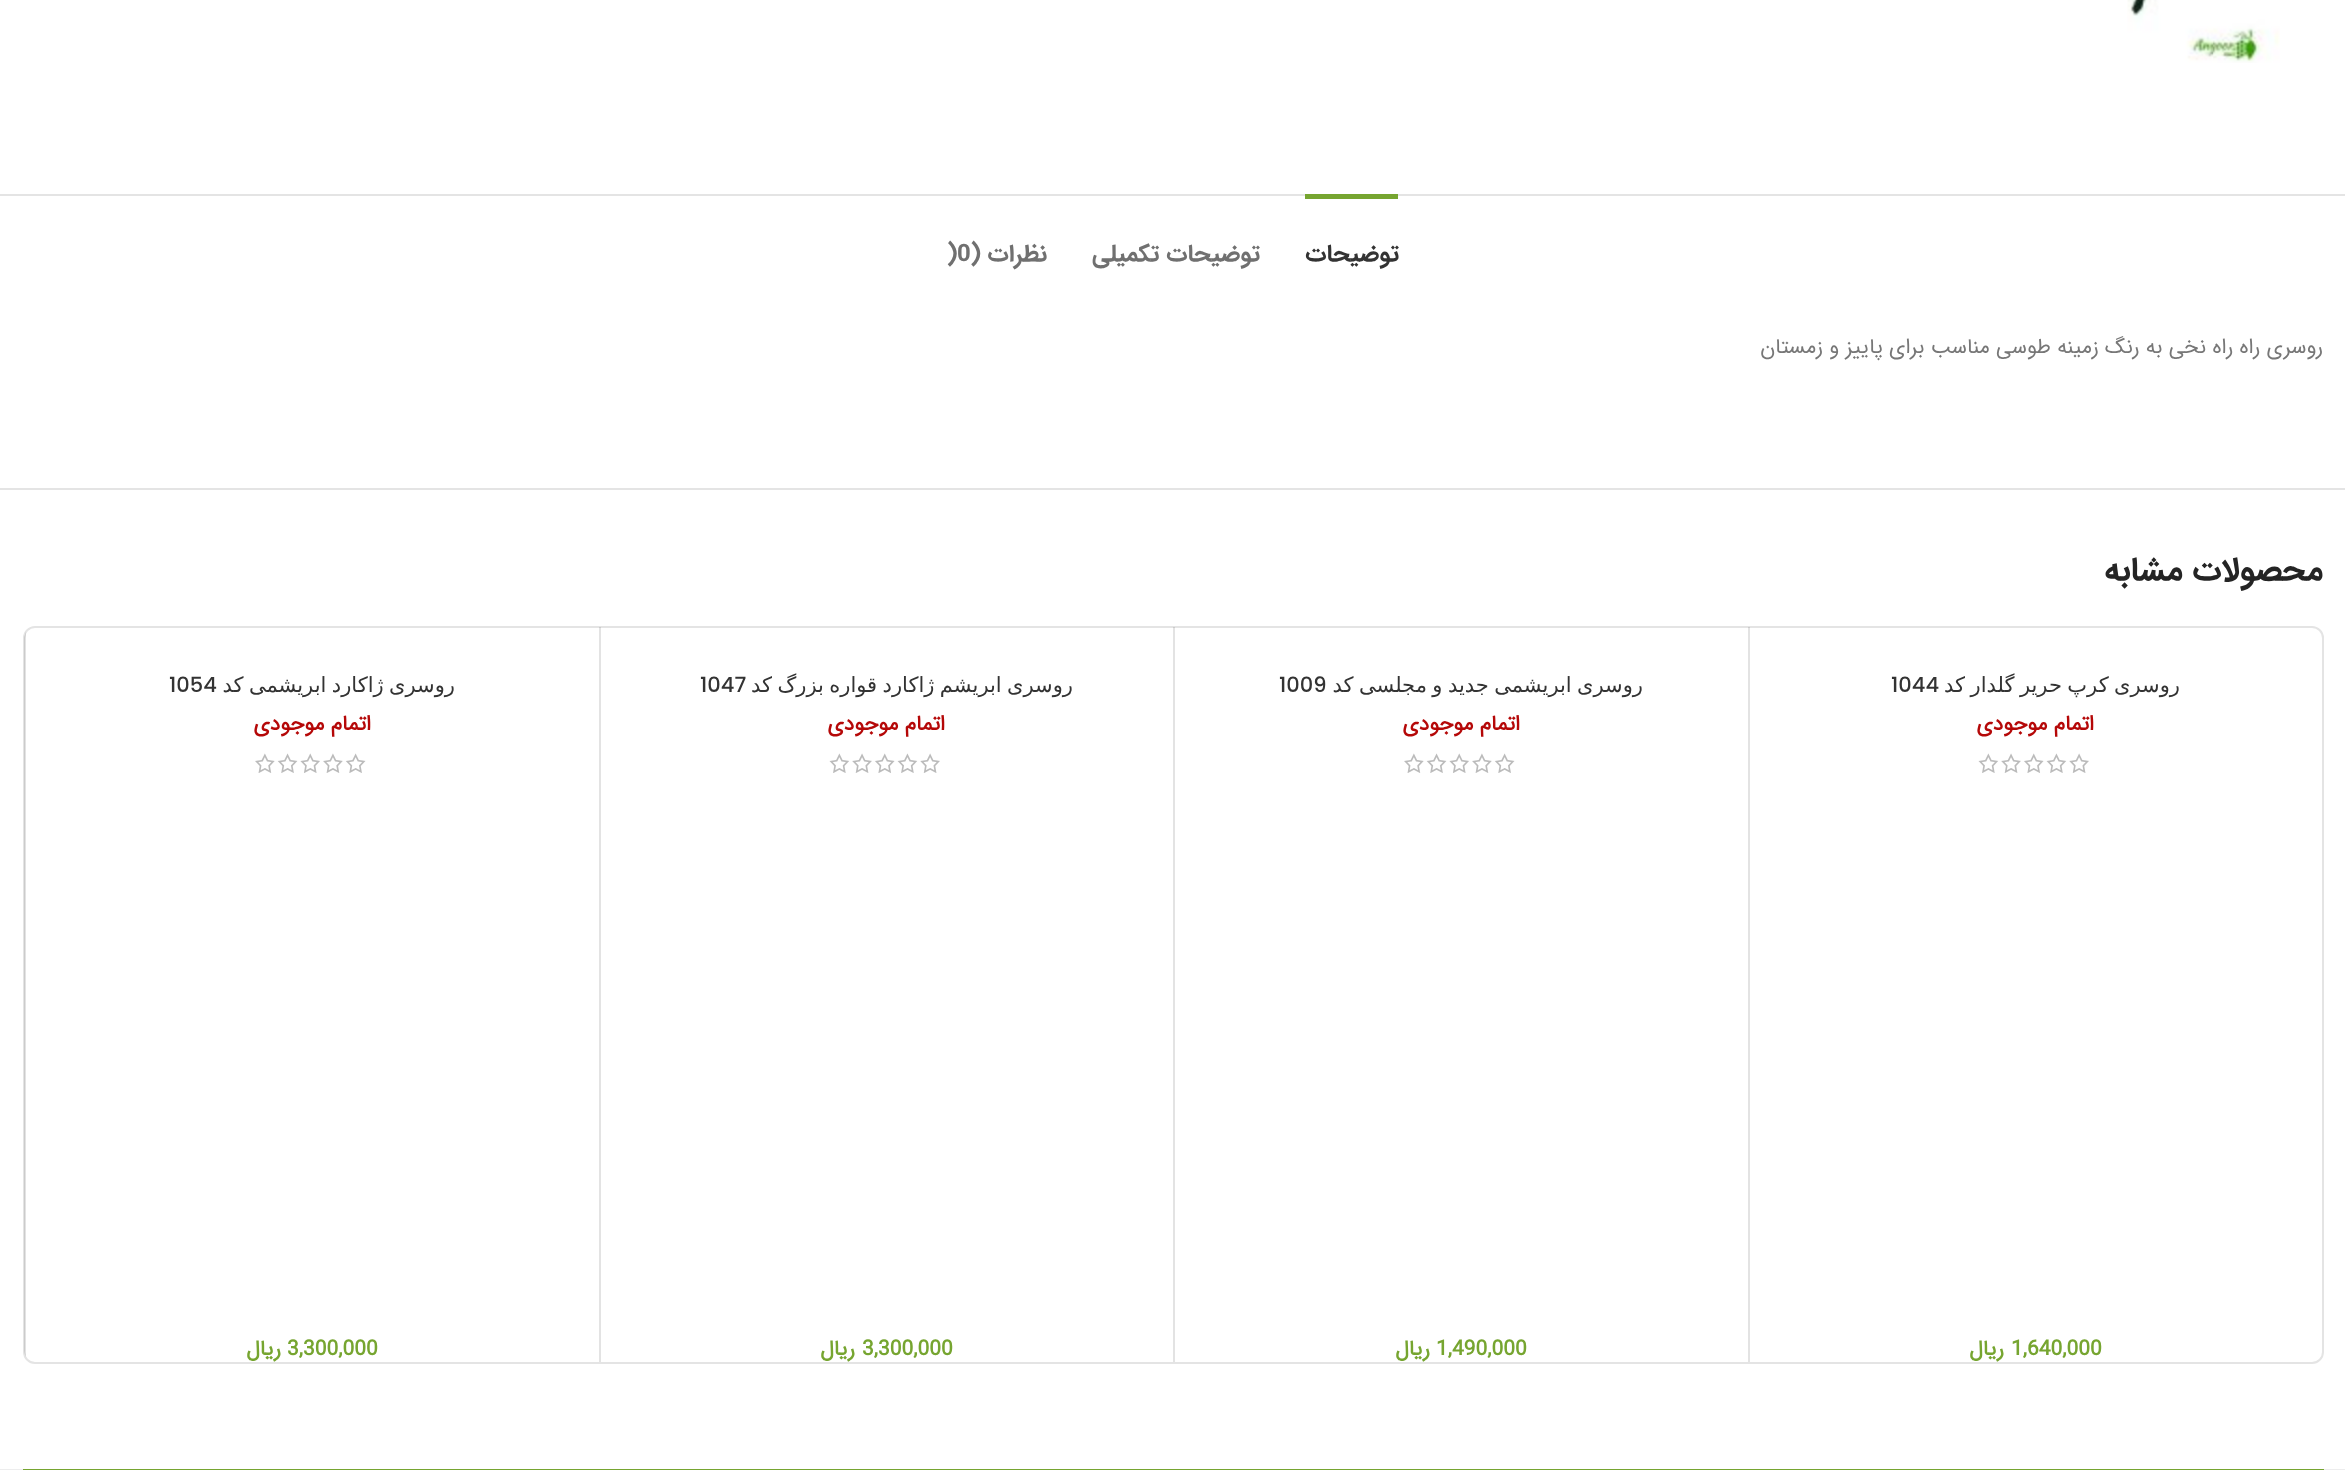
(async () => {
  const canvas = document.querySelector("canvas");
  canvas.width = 2345;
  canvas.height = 1470;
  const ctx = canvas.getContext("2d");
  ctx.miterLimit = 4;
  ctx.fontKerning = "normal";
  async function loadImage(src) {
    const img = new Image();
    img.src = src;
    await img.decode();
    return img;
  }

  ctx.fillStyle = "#ffffff";
  ctx.fillRect(0, 0, 2345, 1470);
  ctx.drawImage(await loadImage("img/1.png"), 2127, 0, 153, 63);
  for (const [x, y, w, h, color] of [
    [0, 194, 2345, 2, "#e4e4e4"],
    [0, 488, 2345, 2, "#e4e4e4"],
    [1305, 194, 93, 5, "#76a530"],
  ]) {
    ctx.fillStyle = color;
    ctx.fillRect(x, y, w, h);
  }
  ctx.beginPath();
  ctx.roundRect(24, 627, 2299, 736, 11);
  ctx.strokeStyle = "#e4e4e4";
  ctx.lineWidth = 2;
  ctx.stroke();
  ctx.fillStyle = "rgba(0, 0, 0, 0.11)";
  ctx.fillRect(1748, 627, 2, 735);
  ctx.drawImage(await loadImage("img/2.png"), 1978, 753, 111, 20);
  ctx.fillRect(1173, 627, 2, 735);
  ctx.drawImage(await loadImage("img/3.png"), 1404, 753, 111, 20);
  ctx.fillRect(599, 627, 2, 735);
  ctx.drawImage(await loadImage("img/2.png"), 829, 753, 111, 20);
  ctx.save();
  ctx.beginPath();
  ctx.roundRect(24, 627, 2298, 735, 12);
  ctx.clip();
  ctx.fillRect(24, 627, 2, 735);
  ctx.restore();
  ctx.drawImage(await loadImage("img/3.png"), 255, 753, 111, 20);
  ctx.fillStyle = "#ededed";
  ctx.fillRect(0, 1469, 2345, 1);
  ctx.fillStyle = "#76a530";
  ctx.fillRect(23, 1469, 2301, 1);
  ctx.direction = "rtl";
  ctx.font = "bold 24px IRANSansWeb";
  ctx.fillStyle = "#333333";
  ctx.fillText("توضیحات", 1399, 261);
  ctx.fillStyle = "#707070";
  ctx.fillText("توضیحات تکمیلی", 1260, 261);
  ctx.fillText("نظرات (", 1047, 261);
  ctx.direction = "ltr";
  ctx.fillText(")0", 947, 261);
  ctx.direction = "rtl";
  ctx.font = "21px IRANSansWeb";
  ctx.fillStyle = "#777777";
  ctx.fillText("روسری راه راه نخی به رنگ زمینه طوسی مناسب برای پاییز و زمستان", 2323, 353);
  ctx.font = "bold 33px IRANSansWeb";
  ctx.fillStyle = "#242424";
  ctx.fillText("محصولات مشابه", 2323, 580);
  ctx.wordSpacing = "-1.25px";
  ctx.font = "21px DejaVu Sans";
  ctx.fillStyle = "#333333";
  ctx.fillText("روسری کرپ حریر گلدار کد", 2180, 692);
  ctx.wordSpacing = "0px";
  ctx.direction = "ltr";
  ctx.font = "500 21px Poppins";
  ctx.fillText("1044", 1891, 692);
  ctx.direction = "rtl";
  ctx.font = "bold 21px 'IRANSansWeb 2'";
  ctx.fillStyle = "#b50808";
  ctx.fillText("اتمام موجودی", 2094, 730);
  ctx.direction = "ltr";
  ctx.fillStyle = "#76a530";
  ctx.fillText("1,640,000", 2011, 1355);
  ctx.direction = "rtl";
  ctx.fillText("ریال", 2004, 1355);
  ctx.wordSpacing = "-1.25px";
  ctx.font = "21px DejaVu Sans";
  ctx.fillStyle = "#333333";
  ctx.fillText("روسری ابریشمی جدید و مجلسی کد", 1643, 692);
  ctx.wordSpacing = "0px";
  ctx.direction = "ltr";
  ctx.font = "500 21px Poppins";
  ctx.fillText("1009", 1279, 692);
  ctx.direction = "rtl";
  ctx.font = "bold 21px 'IRANSansWeb 2'";
  ctx.fillStyle = "#b50808";
  ctx.fillText("اتمام موجودی", 1520, 730);
  ctx.direction = "ltr";
  ctx.fillStyle = "#76a530";
  ctx.fillText("1,490,000", 1436, 1355);
  ctx.direction = "rtl";
  ctx.fillText("ریال", 1430, 1355);
  ctx.wordSpacing = "-1.25px";
  ctx.font = "21px DejaVu Sans";
  ctx.fillStyle = "#333333";
  ctx.fillText("روسری ابریشم ژاکارد قواره بزرگ کد", 1073, 692);
  ctx.wordSpacing = "0px";
  ctx.direction = "ltr";
  ctx.font = "500 21px Poppins";
  ctx.fillText("1047", 700, 692);
  ctx.direction = "rtl";
  ctx.font = "bold 21px 'IRANSansWeb 2'";
  ctx.fillStyle = "#b50808";
  ctx.fillText("اتمام موجودی", 945, 730);
  ctx.direction = "ltr";
  ctx.fillStyle = "#76a530";
  ctx.fillText("3,300,000", 862, 1355);
  ctx.direction = "rtl";
  ctx.fillText("ریال", 855, 1355);
  ctx.wordSpacing = "-1.25px";
  ctx.font = "21px DejaVu Sans";
  ctx.fillStyle = "#333333";
  ctx.fillText("روسری ژاکارد ابریشمی کد", 455, 692);
  ctx.wordSpacing = "0px";
  ctx.direction = "ltr";
  ctx.font = "500 21px Poppins";
  ctx.fillText("1054", 169, 692);
  ctx.direction = "rtl";
  ctx.font = "bold 21px 'IRANSansWeb 2'";
  ctx.fillStyle = "#b50808";
  ctx.fillText("اتمام موجودی", 371, 730);
  ctx.direction = "ltr";
  ctx.fillStyle = "#76a530";
  ctx.fillText("3,300,000", 287, 1355);
  ctx.direction = "rtl";
  ctx.fillText("ریال", 281, 1355);
})();
